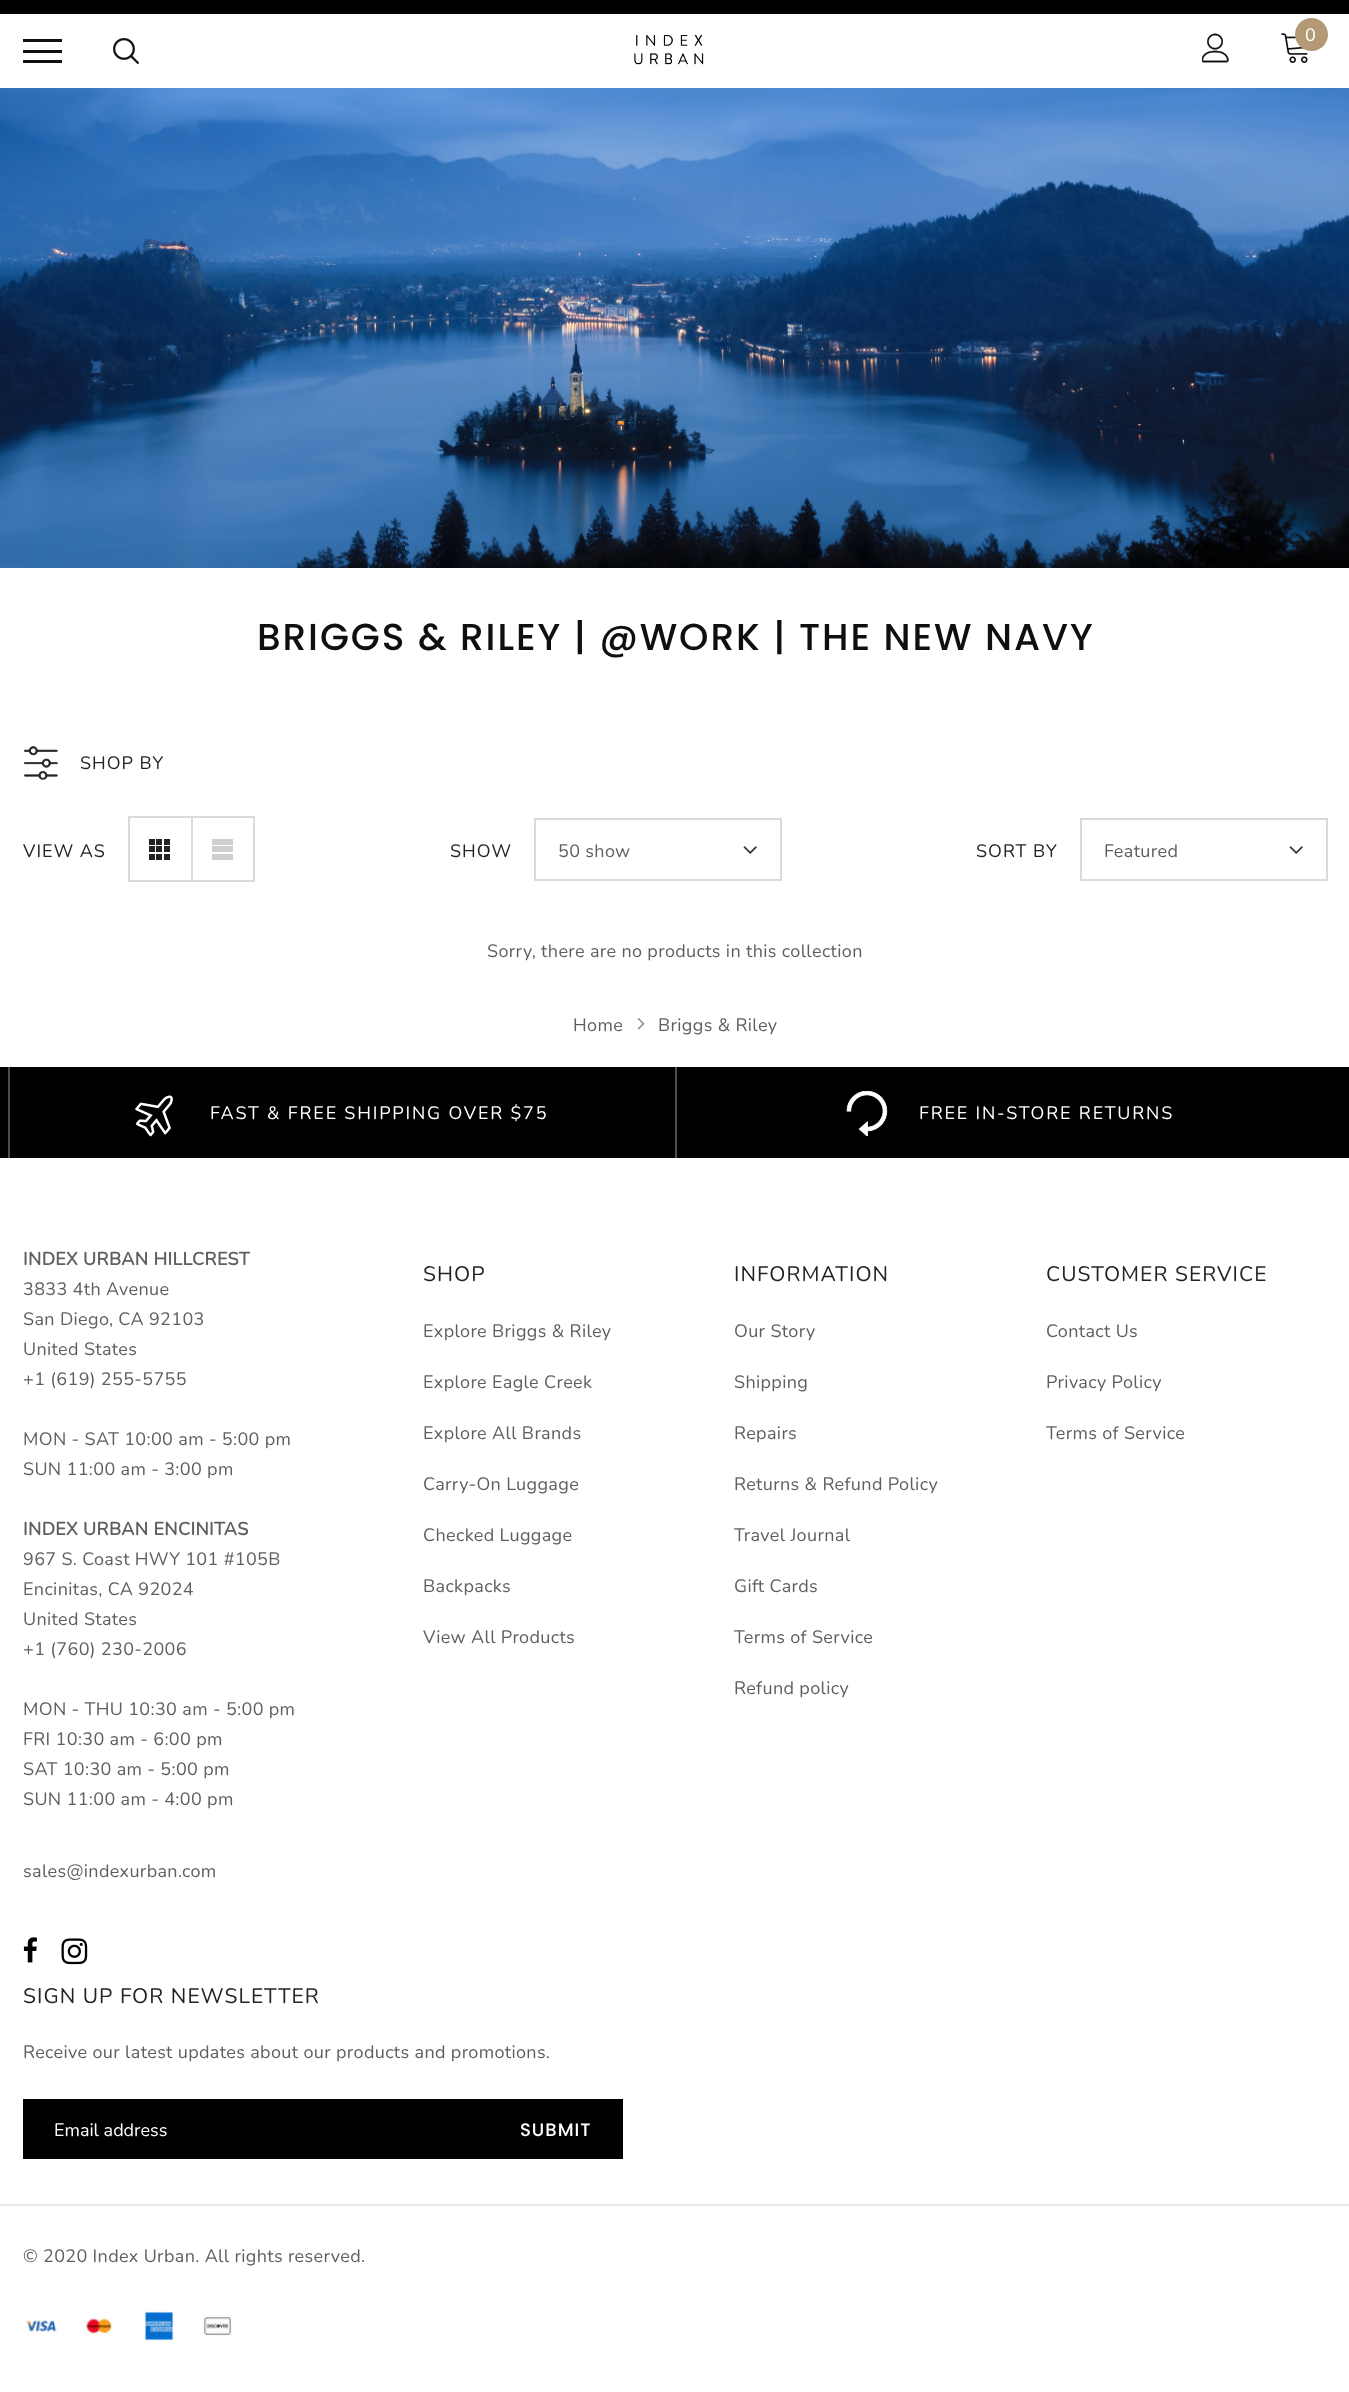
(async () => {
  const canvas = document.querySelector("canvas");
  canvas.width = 1349;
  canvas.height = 2392;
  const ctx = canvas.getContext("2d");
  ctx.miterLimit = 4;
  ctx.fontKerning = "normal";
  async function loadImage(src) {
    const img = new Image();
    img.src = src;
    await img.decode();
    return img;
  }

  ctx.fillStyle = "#ffffff";
  ctx.fillRect(0, 0, 1349, 2392);
  for (const [x, y, w, h, color] of [
    [0, 0, 1349, 14, "#000000"],
    [23, 50, 39, 3, "#0f0f0f"],
    [23, 39, 39, 3, "#0f0f0f"],
    [23, 60, 39, 3, "#0f0f0f"],
  ]) {
    ctx.fillStyle = color;
    ctx.fillRect(x, y, w, h);
  }
  ctx.drawImage(await loadImage("img/1.png"), 113, 38, 26, 26);
  ctx.drawImage(await loadImage("img/2.png"), 634, 35, 70, 30);
  ctx.drawImage(await loadImage("img/3.png"), 1202, 33, 27, 30);
  ctx.drawImage(await loadImage("img/4.png"), 1281, 33, 27, 30);
  ctx.fillStyle = "#b49976";
  ctx.beginPath();
  ctx.arc(1311.5, 34.5, 16.5, 0, Math.PI * 2);
  ctx.fill();
  ctx.drawImage(await loadImage("img/5.png"), 0, 88, 1349, 480);
  ctx.drawImage(await loadImage("img/6.png"), 24, 746, 34, 34);
  ctx.strokeStyle = "#dadada";
  ctx.lineWidth = 2;
  ctx.strokeRect(129, 817, 125, 64);
  for (const [x, y, w, h, color] of [
    [191, 818, 2, 63, "#dadada"],
    [156, 839, 6, 6, "#232323"],
    [149, 839, 6, 6, "#232323"],
    [164, 839, 6, 6, "#232323"],
    [156, 846, 6, 6, "#232323"],
    [149, 846, 6, 6, "#232323"],
    [164, 846, 6, 6, "#232323"],
    [156, 854, 6, 6, "#232323"],
    [149, 854, 6, 6, "#232323"],
    [164, 854, 6, 6, "#232323"],
    [212, 839, 21, 6, "#cfcfcf"],
    [212, 846, 21, 6, "#cfcfcf"],
    [212, 854, 21, 6, "#cfcfcf"],
  ]) {
    ctx.fillStyle = color;
    ctx.fillRect(x, y, w, h);
  }
  ctx.strokeRect(535, 819, 246, 61);
  ctx.drawImage(await loadImage("img/7.png"), 743, 846, 14, 8);
  ctx.strokeRect(1081, 819, 246, 61);
  ctx.drawImage(await loadImage("img/7.png"), 1289, 846, 14, 8);
  ctx.drawImage(await loadImage("img/8.png"), 637, 1018, 8, 12);
  ctx.fillStyle = "#000000";
  ctx.fillRect(0, 1067, 1349, 91);
  ctx.fillStyle = "#4d4d4d";
  ctx.fillRect(8, 1067, 2, 91);
  ctx.drawImage(await loadImage("img/9.png"), 135, 1095, 38, 42);
  ctx.fillRect(675, 1067, 2, 91);
  ctx.drawImage(await loadImage("img/10.png"), 846, 1091, 42, 45);
  ctx.drawImage(await loadImage("img/11.png"), 23, 1937, 14, 26);
  ctx.drawImage(await loadImage("img/12.png"), 61, 1938, 27, 27);
  ctx.fillStyle = "#000000";
  ctx.fillRect(23, 2099, 600, 60);
  ctx.fillStyle = "#e8e8e8";
  ctx.fillRect(0, 2204, 1349, 2);
  ctx.drawImage(await loadImage("img/13.png"), 25, 2320, 32, 12);
  ctx.drawImage(await loadImage("img/14.png"), 83, 2318, 31, 18);
  ctx.drawImage(await loadImage("img/15.png"), 144, 2311, 30, 30);
  ctx.drawImage(await loadImage("img/16.png"), 202, 2315, 30, 21);
  ctx.letterSpacing = "0.35px";
  ctx.font = "18px Nunito";
  ctx.fillStyle = "#ffffff";
  ctx.fillText("0", 1305, 41);
  ctx.letterSpacing = "1.9px";
  ctx.font = "500 37.5px Poppins";
  ctx.fillStyle = "#0f0f0f";
  ctx.fillText("BRIGGS & RILEY | @WORK | THE NEW NAVY", 257, 650);
  ctx.letterSpacing = "1px";
  ctx.font = "18px Nunito";
  ctx.fillStyle = "#232323";
  for (const [text, x, y] of [
    ["SHOP BY", 80, 769],
    ["VIEW AS", 23, 857],
    ["SHOW", 450, 857],
  ]) {
    ctx.fillText(text, x, y);
  }
  ctx.letterSpacing = "0.35px";
  ctx.fillStyle = "#5f5f5f";
  ctx.fillText("50 show", 558, 857);
  ctx.letterSpacing = "1px";
  ctx.fillStyle = "#232323";
  ctx.fillText("SORT BY", 976, 857);
  ctx.letterSpacing = "0.35px";
  ctx.fillStyle = "#5f5f5f";
  for (const [text, x, y] of [
    ["Featured", 1104, 857],
    ["Sorry, there are no products in this collection", 487, 957],
    ["Home", 573, 1031],
    ["Briggs & Riley", 658, 1031],
  ]) {
    ctx.fillText(text, x, y);
  }
  ctx.letterSpacing = "1.8px";
  ctx.fillStyle = "#ffffff";
  ctx.fillText("FAST & FREE SHIPPING OVER $75", 210, 1119);
  ctx.fillText("FREE IN-STORE RETURNS", 919, 1119);
  ctx.letterSpacing = "0.35px";
  ctx.font = "bold 18px Nunito";
  ctx.fillStyle = "#5f5f5f";
  ctx.fillText("INDEX URBAN HILLCREST", 23, 1265);
  ctx.font = "18px Nunito";
  for (const [text, x, y] of [
    ["3833 4th Avenue", 23, 1295],
    ["San Diego, CA 92103", 23, 1325],
    ["United States", 23, 1355],
    ["+1 (619) 255-5755", 23, 1385],
    ["MON - SAT 10:00 am - 5:00 pm", 23, 1445],
    ["SUN 11:00 am - 3:00 pm", 23, 1475],
  ]) {
    ctx.fillText(text, x, y);
  }
  ctx.font = "bold 18px Nunito";
  ctx.fillText("INDEX URBAN ENCINITAS", 23, 1535);
  ctx.font = "18px Nunito";
  for (const [text, x, y] of [
    ["967 S. Coast HWY 101 #105B", 23, 1565],
    ["Encinitas, CA 92024", 23, 1595],
    ["United States", 23, 1625],
    ["+1 (760) 230-2006", 23, 1655],
    ["MON - THU 10:30 am - 5:00 pm", 23, 1715],
    ["FRI 10:30 am - 6:00 pm", 23, 1745],
    ["SAT 10:30 am - 5:00 pm", 23, 1775],
    ["SUN 11:00 am - 4:00 pm", 23, 1805],
    ["sales@indexurban.com", 23, 1877],
  ]) {
    ctx.fillText(text, x, y);
  }
  ctx.letterSpacing = "1.05px";
  ctx.font = "21px Nunito";
  ctx.fillStyle = "#232323";
  ctx.fillText("SHOP", 423, 1281);
  ctx.letterSpacing = "0.35px";
  ctx.font = "18px Nunito";
  ctx.fillStyle = "#5f5f5f";
  for (const [text, x, y] of [
    ["Explore Briggs & Riley", 423, 1337],
    ["Explore Eagle Creek", 423, 1388],
    ["Explore All Brands", 423, 1439],
    ["Carry-On Luggage", 423, 1490],
    ["Checked Luggage", 423, 1541],
    ["Backpacks", 423, 1592],
    ["View All Products", 423, 1643],
  ]) {
    ctx.fillText(text, x, y);
  }
  ctx.letterSpacing = "1.05px";
  ctx.font = "21px Nunito";
  ctx.fillStyle = "#232323";
  ctx.fillText("INFORMATION", 734, 1281);
  ctx.letterSpacing = "0.35px";
  ctx.font = "18px Nunito";
  ctx.fillStyle = "#5f5f5f";
  for (const [text, x, y] of [
    ["Our Story", 734, 1337],
    ["Shipping", 734, 1388],
    ["Repairs", 734, 1439],
    ["Returns & Refund Policy", 734, 1490],
    ["Travel Journal", 734, 1541],
    ["Gift Cards", 734, 1592],
    ["Terms of Service", 734, 1643],
    ["Refund policy", 734, 1694],
  ]) {
    ctx.fillText(text, x, y);
  }
  ctx.letterSpacing = "1.05px";
  ctx.font = "21px Nunito";
  ctx.fillStyle = "#232323";
  ctx.fillText("CUSTOMER SERVICE", 1046, 1281);
  ctx.letterSpacing = "0.35px";
  ctx.font = "18px Nunito";
  ctx.fillStyle = "#5f5f5f";
  for (const [text, x, y] of [
    ["Contact Us", 1046, 1337],
    ["Privacy Policy", 1046, 1388],
    ["Terms of Service", 1046, 1439],
  ]) {
    ctx.fillText(text, x, y);
  }
  ctx.letterSpacing = "1.05px";
  ctx.font = "21px Nunito";
  ctx.fillStyle = "#232323";
  ctx.fillText("SIGN UP FOR NEWSLETTER", 23, 2003);
  ctx.letterSpacing = "0.35px";
  ctx.font = "18px Nunito";
  ctx.fillStyle = "#5f5f5f";
  ctx.fillText("Receive our latest updates about our products and promotions.", 23, 2058);
  ctx.letterSpacing = "0px";
  ctx.fillStyle = "#ffffff";
  ctx.fillText("Email address", 54, 2136);
  ctx.letterSpacing = "1px";
  ctx.font = "500 18px Poppins";
  ctx.fillText("SUBMIT", 520, 2136);
  ctx.letterSpacing = "0.35px";
  ctx.font = "18px Nunito";
  ctx.fillStyle = "#5f5f5f";
  ctx.fillText("© 2020 Index Urban. All rights reserved.", 23, 2262);
})();
